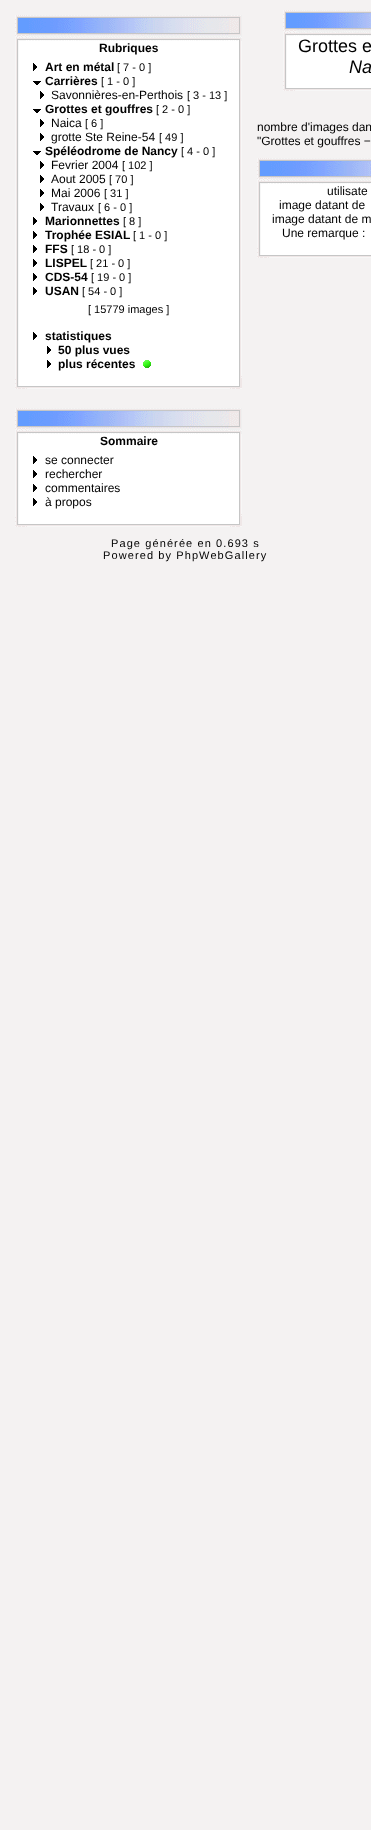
(async () => {
  const canvas = document.querySelector("canvas");
  canvas.width = 371;
  canvas.height = 1830;
  const ctx = canvas.getContext("2d");
  ctx.miterLimit = 4;
  ctx.fontKerning = "normal";
  async function loadImage(src) {
    const img = new Image();
    img.src = src;
    await img.decode();
    return img;
  }

  ctx.fillStyle = "#f4f2f2";
  ctx.fillRect(0, 0, 371, 1830);
  ctx.drawImage(await loadImage("img/1.png"), 15, 15, 13, 26);
  ctx.drawImage(await loadImage("img/2.png"), 28, 15, 201, 26);
  ctx.drawImage(await loadImage("img/3.png"), 229, 15, 13, 26);
  ctx.drawImage(await loadImage("img/4.png"), 15, 41, 13, 335);
  ctx.fillStyle = "#ffffff";
  ctx.fillRect(28, 41, 201, 335);
  ctx.drawImage(await loadImage("img/5.png"), 33, 63, 4, 8);
  ctx.drawImage(await loadImage("img/6.png"), 33, 81, 8, 4);
  ctx.drawImage(await loadImage("img/5.png"), 40, 91, 4, 8);
  ctx.drawImage(await loadImage("img/6.png"), 33, 109, 8, 4);
  ctx.drawImage(await loadImage("img/5.png"), 40, 119, 4, 8);
  ctx.drawImage(await loadImage("img/5.png"), 40, 133, 4, 8);
  ctx.drawImage(await loadImage("img/6.png"), 33, 151, 8, 4);
  ctx.drawImage(await loadImage("img/5.png"), 40, 161, 4, 8);
  ctx.drawImage(await loadImage("img/5.png"), 40, 175, 4, 8);
  ctx.drawImage(await loadImage("img/5.png"), 40, 189, 4, 8);
  ctx.drawImage(await loadImage("img/5.png"), 40, 203, 4, 8);
  ctx.drawImage(await loadImage("img/5.png"), 33, 217, 4, 8);
  ctx.drawImage(await loadImage("img/5.png"), 33, 231, 4, 8);
  ctx.drawImage(await loadImage("img/5.png"), 33, 245, 4, 8);
  ctx.drawImage(await loadImage("img/5.png"), 33, 259, 4, 8);
  ctx.drawImage(await loadImage("img/5.png"), 33, 273, 4, 8);
  ctx.drawImage(await loadImage("img/5.png"), 33, 287, 4, 8);
  ctx.drawImage(await loadImage("img/5.png"), 33, 332, 4, 8);
  ctx.drawImage(await loadImage("img/5.png"), 47, 346, 4, 8);
  ctx.drawImage(await loadImage("img/5.png"), 47, 360, 4, 8);
  ctx.drawImage(await loadImage("img/7.png"), 143, 360, 8, 8);
  ctx.drawImage(await loadImage("img/8.png"), 229, 41, 13, 335);
  ctx.drawImage(await loadImage("img/9.png"), 15, 376, 13, 13);
  ctx.drawImage(await loadImage("img/10.png"), 28, 376, 201, 13);
  ctx.drawImage(await loadImage("img/11.png"), 229, 376, 13, 13);
  ctx.drawImage(await loadImage("img/1.png"), 15, 408, 13, 26);
  ctx.drawImage(await loadImage("img/2.png"), 28, 408, 201, 26);
  ctx.drawImage(await loadImage("img/3.png"), 229, 408, 13, 26);
  ctx.drawImage(await loadImage("img/12.png"), 15, 434, 13, 80);
  ctx.fillRect(28, 434, 201, 80);
  ctx.drawImage(await loadImage("img/5.png"), 33, 456, 4, 8);
  ctx.drawImage(await loadImage("img/5.png"), 33, 470, 4, 8);
  ctx.drawImage(await loadImage("img/5.png"), 33, 484, 4, 8);
  ctx.drawImage(await loadImage("img/5.png"), 33, 498, 4, 8);
  ctx.drawImage(await loadImage("img/13.png"), 229, 434, 13, 80);
  ctx.drawImage(await loadImage("img/9.png"), 15, 514, 13, 13);
  ctx.drawImage(await loadImage("img/10.png"), 28, 514, 201, 13);
  ctx.drawImage(await loadImage("img/11.png"), 229, 514, 13, 13);
  ctx.drawImage(await loadImage("img/1.png"), 283, 10, 13, 26);
  ctx.drawImage(await loadImage("img/14.png"), 296, 10, 75, 26);
  ctx.drawImage(await loadImage("img/15.png"), 283, 36, 13, 42);
  ctx.fillRect(296, 36, 75, 42);
  ctx.drawImage(await loadImage("img/9.png"), 283, 78, 13, 13);
  ctx.drawImage(await loadImage("img/16.png"), 296, 78, 75, 13);
  ctx.drawImage(await loadImage("img/1.png"), 257, 158, 13, 26);
  ctx.drawImage(await loadImage("img/17.png"), 270, 158, 101, 26);
  ctx.drawImage(await loadImage("img/18.png"), 257, 184, 13, 61);
  ctx.fillRect(270, 184, 101, 61);
  ctx.drawImage(await loadImage("img/9.png"), 257, 245, 13, 13);
  ctx.drawImage(await loadImage("img/19.png"), 270, 245, 101, 13);
  ctx.font = "bold 12px Liberation Sans";
  ctx.fillStyle = "#000000";
  ctx.fillText("Rubriques", 99, 52);
  ctx.fillText("Art en métal", 45, 71);
  ctx.font = "11px Liberation Sans";
  ctx.fillText("[ 7 - 0 ]", 117, 71);
  ctx.font = "bold 12px Liberation Sans";
  ctx.fillText("Carrières", 45, 85);
  ctx.font = "11px Liberation Sans";
  ctx.fillText("[ 1 - 0 ]", 101, 85);
  ctx.font = "12px Liberation Sans";
  ctx.fillText("Savonnières-en-Perthois", 51, 99);
  ctx.font = "11px Liberation Sans";
  ctx.fillText("[ 3 - 13 ]", 187, 99);
  ctx.font = "bold 12px Liberation Sans";
  ctx.fillText("Grottes et gouffres", 45, 113);
  ctx.font = "11px Liberation Sans";
  ctx.fillText("[ 2 - 0 ]", 156, 113);
  ctx.font = "12px Liberation Sans";
  ctx.fillText("Naica", 51, 127);
  ctx.font = "11px Liberation Sans";
  ctx.fillText("[ 6 ]", 85, 127);
  ctx.font = "12px Liberation Sans";
  ctx.fillText("grotte Ste Reine-54", 51, 141);
  ctx.font = "11px Liberation Sans";
  ctx.fillText("[ 49 ]", 159, 141);
  ctx.font = "bold 12px Liberation Sans";
  ctx.fillText("Spéléodrome de Nancy", 45, 155);
  ctx.font = "11px Liberation Sans";
  ctx.fillText("[ 4 - 0 ]", 181, 155);
  ctx.font = "12px Liberation Sans";
  ctx.fillText("Fevrier 2004", 51, 169);
  ctx.font = "11px Liberation Sans";
  ctx.fillText("[ 102 ]", 122, 169);
  ctx.font = "12px Liberation Sans";
  ctx.fillText("Aout 2005", 51, 183);
  ctx.font = "11px Liberation Sans";
  ctx.fillText("[ 70 ]", 109, 183);
  ctx.font = "12px Liberation Sans";
  ctx.fillText("Mai 2006", 51, 197);
  ctx.font = "11px Liberation Sans";
  ctx.fillText("[ 31 ]", 104, 197);
  ctx.font = "12px Liberation Sans";
  ctx.fillText("Travaux", 51, 211);
  ctx.font = "11px Liberation Sans";
  ctx.fillText("[ 6 - 0 ]", 98, 211);
  ctx.font = "bold 12px Liberation Sans";
  ctx.fillText("Marionnettes", 45, 225);
  ctx.font = "11px Liberation Sans";
  ctx.fillText("[ 8 ]", 123, 225);
  ctx.font = "bold 12px Liberation Sans";
  ctx.fillText("Trophée ESIAL", 45, 239);
  ctx.font = "11px Liberation Sans";
  ctx.fillText("[ 1 - 0 ]", 133, 239);
  ctx.font = "bold 12px Liberation Sans";
  ctx.fillText("FFS", 45, 253);
  ctx.font = "11px Liberation Sans";
  ctx.fillText("[ 18 - 0 ]", 71, 253);
  ctx.font = "bold 12px Liberation Sans";
  ctx.fillText("LISPEL", 45, 267);
  ctx.font = "11px Liberation Sans";
  ctx.fillText("[ 21 - 0 ]", 90, 267);
  ctx.font = "bold 12px Liberation Sans";
  ctx.fillText("CDS-54", 45, 281);
  ctx.font = "11px Liberation Sans";
  ctx.fillText("[ 19 - 0 ]", 91, 281);
  ctx.font = "bold 12px Liberation Sans";
  ctx.fillText("USAN", 45, 295);
  ctx.font = "11px Liberation Sans";
  ctx.fillText("[ 54 - 0 ]", 82, 295);
  ctx.fillText("[ 15779 images ]", 88, 313);
  ctx.font = "bold 12px Liberation Sans";
  for (const [text, x, y] of [
    ["statistiques", 45, 340],
    ["50 plus vues", 58, 354],
    ["plus récentes", 58, 368],
    ["Sommaire", 100, 445],
  ]) {
    ctx.fillText(text, x, y);
  }
  ctx.font = "12px Liberation Sans";
  for (const [text, x, y] of [
    ["se connecter", 45, 464],
    ["rechercher", 45, 478],
    ["commentaires", 45, 492],
    ["à propos", 45, 506],
  ]) {
    ctx.fillText(text, x, y);
  }
  ctx.font = "18px Liberation Sans";
  ctx.fillText("Grottes e", 298, 52);
  ctx.font = "italic 18px Liberation Sans";
  ctx.fillText("Na", 349, 73);
  ctx.font = "12px Liberation Sans";
  for (const [text, x, y] of [
    ["nombre d'images dan", 257, 131],
    ["\"Grottes et gouffres −", 257, 145],
    ["utilisate", 327, 195],
    ["image datant de", 279, 209],
    ["image datant de m", 272, 223],
    ["Une remarque :", 282, 237],
  ]) {
    ctx.fillText(text, x, y);
  }
  ctx.letterSpacing = "1.1px";
  ctx.font = "11px Liberation Sans";
  ctx.fillText("Page générée en 0.693 s", 111, 547);
  ctx.fillText("Powered by PhpWebGallery", 103, 559);
})();
